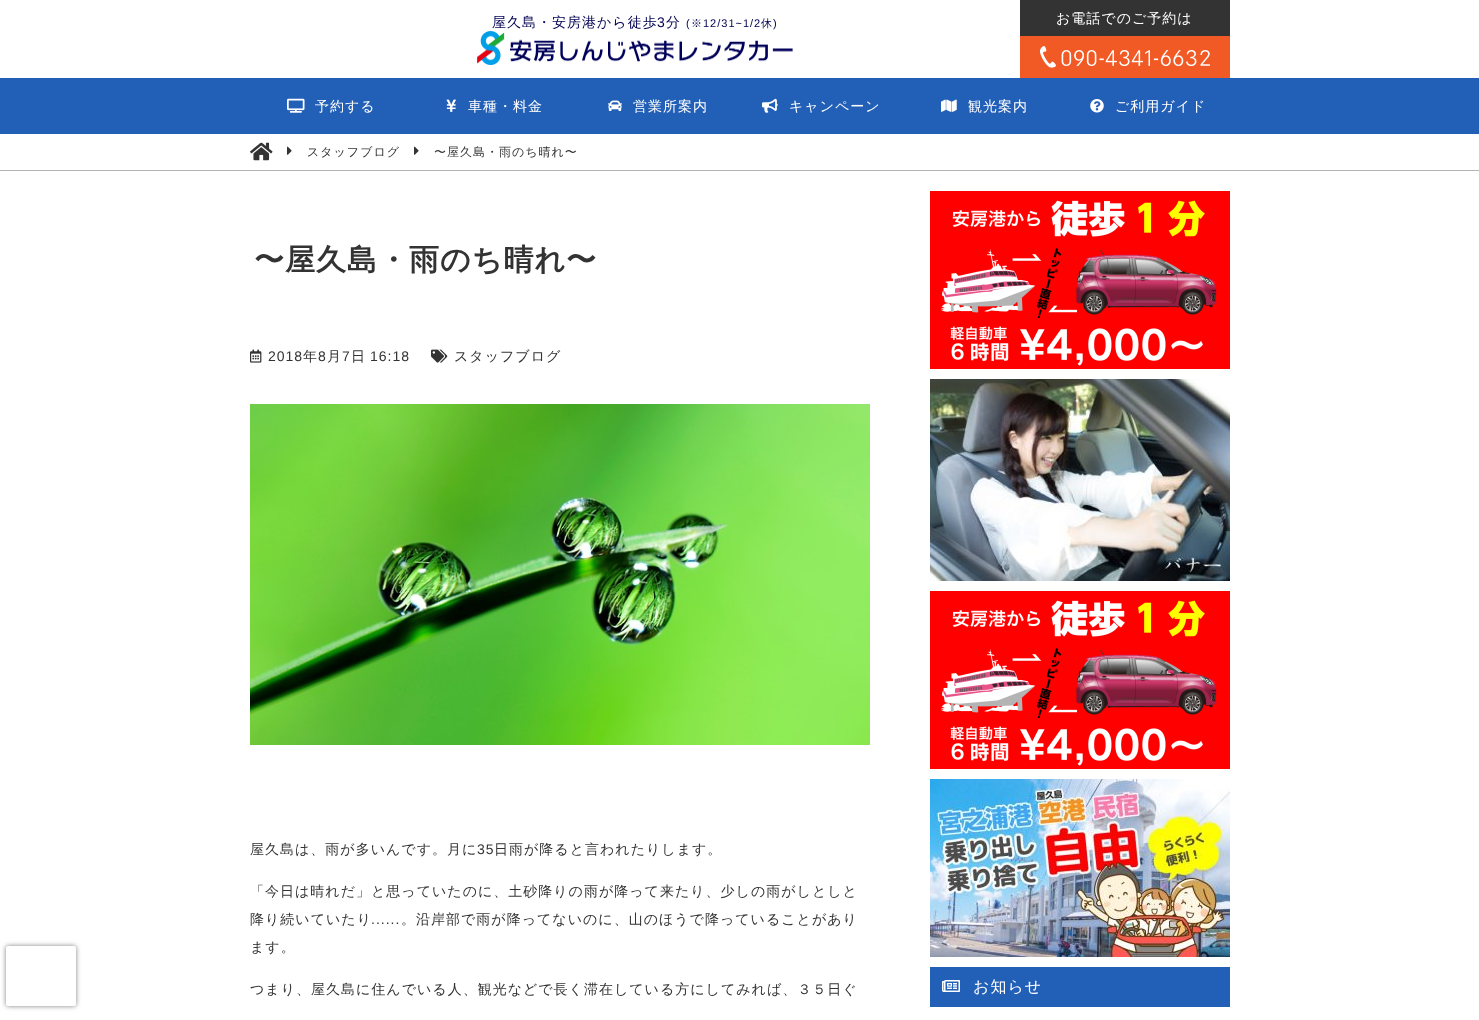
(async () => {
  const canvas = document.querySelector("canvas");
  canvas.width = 1479;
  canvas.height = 1020;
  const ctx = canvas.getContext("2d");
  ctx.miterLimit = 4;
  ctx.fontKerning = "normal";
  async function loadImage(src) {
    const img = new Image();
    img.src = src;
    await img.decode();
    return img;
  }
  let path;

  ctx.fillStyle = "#ffffff";
  ctx.fillRect(0, 0, 1479, 1020);
  ctx.drawImage(await loadImage("img/1.png"), 477, 31, 316, 34);
  ctx.fillStyle = "#333333";
  ctx.fillRect(1020, 0, 210, 36);
  ctx.fillStyle = "#f15a24";
  ctx.fillRect(1020, 36, 210, 42);
  ctx.drawImage(await loadImage("img/2.png"), 1040, 46, 170, 22);
  ctx.fillStyle = "#225fb7";
  ctx.fillRect(0, 78, 1479, 56);
  ctx.drawImage(await loadImage("img/3.png"), 287, 98, 18, 15);
  ctx.drawImage(await loadImage("img/4.png"), 446, 99, 10, 13);
  ctx.drawImage(await loadImage("img/5.png"), 608, 100, 14, 11);
  ctx.drawImage(await loadImage("img/6.png"), 762, 98, 16, 15);
  ctx.drawImage(await loadImage("img/7.png"), 941, 99, 16, 13);
  ctx.drawImage(await loadImage("img/8.png"), 1090, 99, 14, 14);
  ctx.save();
  path = new Path2D("M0 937H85V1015H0ZM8 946H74C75 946 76 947 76 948V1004C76 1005 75 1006 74 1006H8C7 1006 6 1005 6 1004V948C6 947 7 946 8 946Z");
  ctx.clip(path, "evenodd");
  ctx.fillStyle = "#808080";
  ctx.filter = "blur(2.5px)";
  ctx.beginPath();
  ctx.roundRect(6, 946, 70, 60, 2);
  ctx.fill();
  ctx.filter = "none";
  ctx.restore();
  ctx.fillStyle = "#b3b3b3";
  ctx.fillRect(0, 170, 1479, 1);
  ctx.drawImage(await loadImage("img/9.png"), 250, 142, 23, 19);
  ctx.drawImage(await loadImage("img/10.png"), 287, 146, 5, 9);
  ctx.drawImage(await loadImage("img/10.png"), 414, 146, 5, 9);
  ctx.drawImage(await loadImage("img/11.png"), 250, 349, 12, 14);
  ctx.drawImage(await loadImage("img/12.png"), 431, 349, 17, 14);
  ctx.drawImage(await loadImage("img/13.png"), 250, 404, 620, 341);
  ctx.drawImage(await loadImage("img/14.png"), 930, 191, 300, 178);
  ctx.drawImage(await loadImage("img/15.png"), 930, 379, 300, 202);
  ctx.drawImage(await loadImage("img/14.png"), 930, 591, 300, 178);
  ctx.drawImage(await loadImage("img/16.png"), 930, 779, 300, 178);
  ctx.fillStyle = "#225fb7";
  ctx.fillRect(930, 967, 300, 40);
  ctx.drawImage(await loadImage("img/17.png"), 942, 980, 18, 12);
  ctx.letterSpacing = "1px";
  ctx.font = "500 14px WenQuanYi Zen Hei";
  ctx.fillStyle = "#000052";
  ctx.fillText("屋久島・安房港から徒歩", 492, 27);
  ctx.font = "14px Liberation Sans";
  ctx.fillText("3", 657, 27);
  ctx.font = "500 14px WenQuanYi Zen Hei";
  ctx.fillText("分", 666, 27);
  ctx.font = "11px Liberation Sans";
  ctx.fillText("(", 686, 27);
  ctx.font = "500 11px WenQuanYi Zen Hei";
  ctx.fillText("※", 691, 27);
  ctx.font = "11px Liberation Sans";
  ctx.fillText("12/31~1/2", 703, 27);
  ctx.font = "500 11px WenQuanYi Zen Hei";
  ctx.fillText("休", 761, 27);
  ctx.font = "11px Liberation Sans";
  ctx.fillText(")", 773, 27);
  ctx.font = "500 14px WenQuanYi Zen Hei";
  ctx.fillStyle = "#ffffff";
  for (const [text, x, y] of [
    ["お電話でのご予約は", 1056, 23],
    ["予約する", 315, 111],
    ["車種・料金", 468, 111],
    ["営業所案内", 633, 111],
    ["キャンペーン", 789, 111],
    ["観光案内", 968, 111],
    ["ご利用ガイド", 1115, 111],
  ]) {
    ctx.fillText(text, x, y);
  }
  ctx.font = "500 12px WenQuanYi Zen Hei";
  ctx.fillStyle = "#333333";
  ctx.fillText("スタッフブログ", 307, 156);
  ctx.fillText("〜屋久島・雨のち晴れ〜", 434, 156);
  ctx.font = "bold 30px WenQuanYi Zen Hei";
  ctx.fillText("〜屋久島・雨のち晴れ〜", 254, 270);
  ctx.font = "14px Liberation Sans";
  ctx.fillText("2018", 268, 361);
  ctx.font = "500 14px WenQuanYi Zen Hei";
  ctx.fillText("年", 303, 361);
  ctx.font = "14px Liberation Sans";
  ctx.fillText("8", 318, 361);
  ctx.font = "500 14px WenQuanYi Zen Hei";
  ctx.fillText("月", 327, 361);
  ctx.font = "14px Liberation Sans";
  ctx.fillText("7", 342, 361);
  ctx.font = "500 14px WenQuanYi Zen Hei";
  ctx.fillText("日", 351, 361);
  ctx.font = "14px Liberation Sans";
  ctx.fillText("16:18", 370, 361);
  ctx.font = "500 14px WenQuanYi Zen Hei";
  ctx.fillText("スタッフブログ", 454, 361);
  ctx.fillText("屋久島は、雨が多いんです。月に", 250, 854);
  ctx.font = "14px Liberation Sans";
  ctx.fillText("35", 477, 854);
  ctx.font = "500 14px WenQuanYi Zen Hei";
  for (const [text, x, y] of [
    ["日雨が降ると言われたりします。", 494, 854],
    ["「今日は晴れだ」と思っていたのに、土砂降りの雨が降って来たり、少しの雨がしとしと", 250, 896],
    ["降り続いていたり", 250, 924],
  ]) {
    ctx.fillText(text, x, y);
  }
  ctx.font = "14px Liberation Sans";
  ctx.fillText("......", 371, 924);
  ctx.font = "500 14px WenQuanYi Zen Hei";
  for (const [text, x, y] of [
    ["。沿岸部で雨が降ってないのに、山のほうで降っていることがあり", 401, 924],
    ["ます。", 250, 952],
    ["つまり、屋久島に住んでいる人、観光などで長く滞在している方にしてみれば、３５日ぐ", 250, 994],
  ]) {
    ctx.fillText(text, x, y);
  }
  ctx.font = "500 16px WenQuanYi Zen Hei";
  ctx.fillStyle = "#ffffff";
  ctx.fillText("お知らせ", 973, 992);
})();
